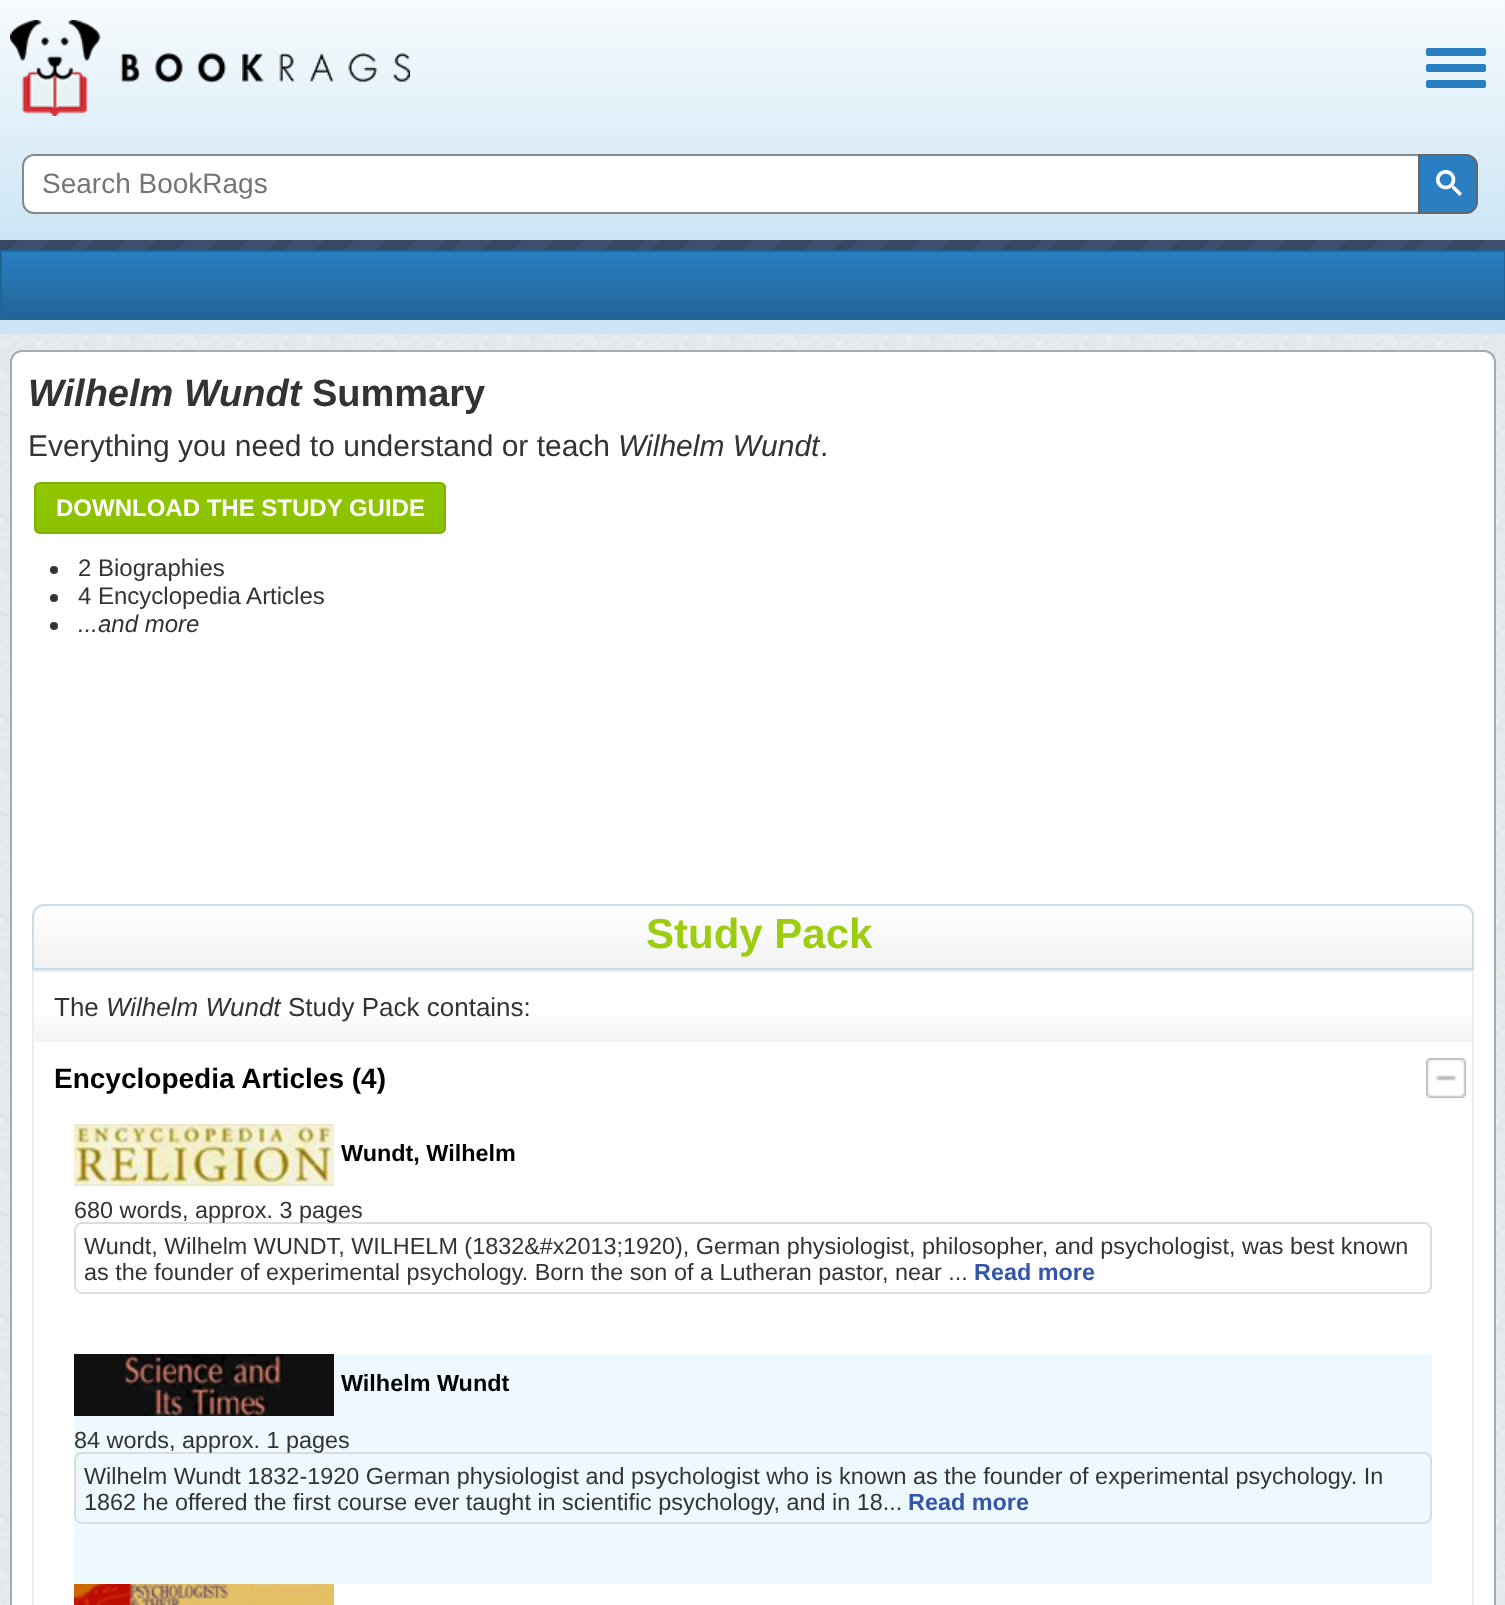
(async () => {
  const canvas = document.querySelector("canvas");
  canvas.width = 1505;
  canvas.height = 1605;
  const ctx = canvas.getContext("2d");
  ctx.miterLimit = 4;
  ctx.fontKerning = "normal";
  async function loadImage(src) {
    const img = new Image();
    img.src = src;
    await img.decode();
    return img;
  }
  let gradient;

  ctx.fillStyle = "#ffffff";
  ctx.fillRect(0, 0, 1505, 1605);
  ctx.drawImage(await loadImage("img/1.png"), 0, 334, 1505, 1271);
  gradient = ctx.createLinearGradient(753, 0, 753, 240);
  gradient.addColorStop(0, "#f7fbfd");
  gradient.addColorStop(1, "#cce5f5");
  ctx.fillStyle = gradient;
  ctx.fillRect(0, 0, 1505, 240);
  ctx.drawImage(await loadImage("img/2.png"), 10, 20, 400, 96);
  ctx.fillStyle = "#2a7fc2";
  ctx.beginPath();
  ctx.roundRect(1426, 48, 60, 8, 2);
  ctx.fill();
  ctx.beginPath();
  ctx.roundRect(1426, 64, 60, 8, 2);
  ctx.fill();
  ctx.beginPath();
  ctx.roundRect(1426, 80, 60, 8, 2);
  ctx.fill();
  ctx.fillStyle = "#ffffff";
  ctx.beginPath();
  ctx.roundRect(23, 155, 1396, 58, [11, 0, 0, 11]);
  ctx.fill();
  ctx.strokeStyle = "#888888";
  ctx.lineWidth = 2;
  ctx.stroke();
  ctx.fillStyle = "#2a7fc2";
  ctx.beginPath();
  ctx.roundRect(1419, 155, 58, 58, [0, 11, 11, 0]);
  ctx.fill();
  ctx.strokeStyle = "#666666";
  ctx.stroke();
  ctx.drawImage(await loadImage("img/3.png"), 1436, 170, 26, 26);
  gradient = ctx.createLinearGradient(1132, 624, 368, -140);
  gradient.addColorStop(0, "#3d4f6c");
  gradient.addColorStop(0.02, "#3d4f6c");
  gradient.addColorStop(0.02, "#374862");
  gradient.addColorStop(0.04, "#374862");
  gradient.addColorStop(0.04, "#3d4f6c");
  gradient.addColorStop(0.06, "#3d4f6c");
  gradient.addColorStop(0.06, "#374862");
  gradient.addColorStop(0.07, "#374862");
  gradient.addColorStop(0.07, "#3d4f6c");
  gradient.addColorStop(0.09, "#3d4f6c");
  gradient.addColorStop(0.09, "#374862");
  gradient.addColorStop(0.11, "#374862");
  gradient.addColorStop(0.11, "#3d4f6c");
  gradient.addColorStop(0.13, "#3d4f6c");
  gradient.addColorStop(0.13, "#374862");
  gradient.addColorStop(0.15, "#374862");
  gradient.addColorStop(0.15, "#3d4f6c");
  gradient.addColorStop(0.17, "#3d4f6c");
  gradient.addColorStop(0.17, "#374862");
  gradient.addColorStop(0.19, "#374862");
  gradient.addColorStop(0.19, "#3d4f6c");
  gradient.addColorStop(0.2, "#3d4f6c");
  gradient.addColorStop(0.2, "#374862");
  gradient.addColorStop(0.22, "#374862");
  gradient.addColorStop(0.22, "#3d4f6c");
  gradient.addColorStop(0.24, "#3d4f6c");
  gradient.addColorStop(0.24, "#374862");
  gradient.addColorStop(0.26, "#374862");
  gradient.addColorStop(0.26, "#3d4f6c");
  gradient.addColorStop(0.28, "#3d4f6c");
  gradient.addColorStop(0.28, "#374862");
  gradient.addColorStop(0.3, "#374862");
  gradient.addColorStop(0.3, "#3d4f6c");
  gradient.addColorStop(0.31, "#3d4f6c");
  gradient.addColorStop(0.31, "#374862");
  gradient.addColorStop(0.33, "#374862");
  gradient.addColorStop(0.33, "#3d4f6c");
  gradient.addColorStop(0.35, "#3d4f6c");
  gradient.addColorStop(0.35, "#374862");
  gradient.addColorStop(0.37, "#374862");
  gradient.addColorStop(0.37, "#3d4f6c");
  gradient.addColorStop(0.39, "#3d4f6c");
  gradient.addColorStop(0.39, "#374862");
  gradient.addColorStop(0.41, "#374862");
  gradient.addColorStop(0.41, "#3d4f6c");
  gradient.addColorStop(0.43, "#3d4f6c");
  gradient.addColorStop(0.43, "#374862");
  gradient.addColorStop(0.44, "#374862");
  gradient.addColorStop(0.44, "#3d4f6c");
  gradient.addColorStop(0.46, "#3d4f6c");
  gradient.addColorStop(0.46, "#374862");
  gradient.addColorStop(0.48, "#374862");
  gradient.addColorStop(0.48, "#3d4f6c");
  gradient.addColorStop(0.5, "#3d4f6c");
  gradient.addColorStop(0.5, "#374862");
  gradient.addColorStop(0.52, "#374862");
  gradient.addColorStop(0.52, "#3d4f6c");
  gradient.addColorStop(0.54, "#3d4f6c");
  gradient.addColorStop(0.54, "#374862");
  gradient.addColorStop(0.56, "#374862");
  gradient.addColorStop(0.56, "#3d4f6c");
  gradient.addColorStop(0.57, "#3d4f6c");
  gradient.addColorStop(0.57, "#374862");
  gradient.addColorStop(0.59, "#374862");
  gradient.addColorStop(0.59, "#3d4f6c");
  gradient.addColorStop(0.61, "#3d4f6c");
  gradient.addColorStop(0.61, "#374862");
  gradient.addColorStop(0.63, "#374862");
  gradient.addColorStop(0.63, "#3d4f6c");
  gradient.addColorStop(0.65, "#3d4f6c");
  gradient.addColorStop(0.65, "#374862");
  gradient.addColorStop(0.67, "#374862");
  gradient.addColorStop(0.67, "#3d4f6c");
  gradient.addColorStop(0.69, "#3d4f6c");
  gradient.addColorStop(0.69, "#374862");
  gradient.addColorStop(0.7, "#374862");
  gradient.addColorStop(0.7, "#3d4f6c");
  gradient.addColorStop(0.72, "#3d4f6c");
  gradient.addColorStop(0.72, "#374862");
  gradient.addColorStop(0.74, "#374862");
  gradient.addColorStop(0.74, "#3d4f6c");
  gradient.addColorStop(0.76, "#3d4f6c");
  gradient.addColorStop(0.76, "#374862");
  gradient.addColorStop(0.78, "#374862");
  gradient.addColorStop(0.78, "#3d4f6c");
  gradient.addColorStop(0.8, "#3d4f6c");
  gradient.addColorStop(0.8, "#374862");
  gradient.addColorStop(0.81, "#374862");
  gradient.addColorStop(0.81, "#3d4f6c");
  gradient.addColorStop(0.83, "#3d4f6c");
  gradient.addColorStop(0.83, "#374862");
  gradient.addColorStop(0.85, "#374862");
  gradient.addColorStop(0.85, "#3d4f6c");
  gradient.addColorStop(0.87, "#3d4f6c");
  gradient.addColorStop(0.87, "#374862");
  gradient.addColorStop(0.89, "#374862");
  gradient.addColorStop(0.89, "#3d4f6c");
  gradient.addColorStop(0.91, "#3d4f6c");
  gradient.addColorStop(0.91, "#374862");
  gradient.addColorStop(0.93, "#374862");
  gradient.addColorStop(0.93, "#3d4f6c");
  gradient.addColorStop(0.94, "#3d4f6c");
  gradient.addColorStop(0.94, "#374862");
  gradient.addColorStop(0.96, "#374862");
  gradient.addColorStop(0.96, "#3d4f6c");
  gradient.addColorStop(0.98, "#3d4f6c");
  gradient.addColorStop(0.98, "#374862");
  gradient.addColorStop(1, "#374862");
  ctx.fillStyle = gradient;
  ctx.fillRect(0, 240, 1505, 10);
  gradient = ctx.createLinearGradient(753, 252, 753, 318);
  gradient.addColorStop(0, "#2a7fc2");
  gradient.addColorStop(1, "#216498");
  ctx.fillStyle = gradient;
  ctx.fillRect(2, 252, 1502, 66);
  ctx.strokeStyle = "#216498";
  ctx.strokeRect(1, 251, 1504, 68);
  ctx.fillStyle = "#cce5f5";
  ctx.fillRect(0, 320, 1505, 14);
  ctx.fillStyle = "#ffffff";
  ctx.beginPath();
  ctx.roundRect(11, 351, 1484, 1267, 11);
  ctx.fill();
  ctx.strokeStyle = "#aaaaaa";
  ctx.stroke();
  ctx.save();
  ctx.beginPath();
  ctx.roundRect(34, 482, 412, 52, 6);
  ctx.clip();
  gradient = ctx.createLinearGradient(240, 484, 240, 532);
  gradient.addColorStop(0, "#90c700");
  gradient.addColorStop(1, "#8cc000");
  ctx.fillStyle = gradient;
  ctx.fillRect(34, 484, 412, 48);
  ctx.restore();
  ctx.beginPath();
  ctx.roundRect(35, 483, 410, 50, 5);
  ctx.strokeStyle = "#7bb300";
  ctx.stroke();
  ctx.fillStyle = "#333333";
  ctx.beginPath();
  ctx.arc(54, 570, 4, 0, Math.PI * 2);
  ctx.fill();
  ctx.beginPath();
  ctx.arc(54, 598, 4, 0, Math.PI * 2);
  ctx.fill();
  ctx.beginPath();
  ctx.arc(54, 626, 4, 0, Math.PI * 2);
  ctx.fill();
  ctx.save();
  ctx.beginPath();
  ctx.roundRect(32, 904, 1442, 66, [12, 12, 0, 0]);
  ctx.clip();
  gradient = ctx.createLinearGradient(753, 906, 753, 968);
  gradient.addColorStop(0, "#ffffff");
  gradient.addColorStop(1, "#f2f2f2");
  ctx.fillStyle = gradient;
  ctx.fillRect(32, 906, 1442, 62);
  ctx.restore();
  ctx.beginPath();
  ctx.roundRect(33, 905, 1440, 64, [11, 11, 0, 0]);
  ctx.strokeStyle = "#c9deea";
  ctx.stroke();
  ctx.strokeStyle = "#ececec";
  ctx.strokeRect(33, 971, 1440, 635);
  gradient = ctx.createLinearGradient(753, 972, 753, 1042);
  gradient.addColorStop(0, "#ffffff");
  gradient.addColorStop(0.5, "#ffffff");
  gradient.addColorStop(1, "#f2f2f2");
  ctx.fillStyle = gradient;
  ctx.fillRect(34, 1014, 1438, 28);
  ctx.drawImage(await loadImage("img/4.png"), 1426, 1058, 40, 40);
  ctx.drawImage(await loadImage("img/5.png"), 74, 1124, 260, 62);
  ctx.beginPath();
  ctx.roundRect(75, 1223, 1356, 70, 7);
  ctx.strokeStyle = "#dddddd";
  ctx.stroke();
  ctx.fillStyle = "#eef9ff";
  ctx.fillRect(74, 1354, 1358, 230);
  ctx.drawImage(await loadImage("img/6.png"), 74, 1354, 260, 62);
  ctx.beginPath();
  ctx.roundRect(75, 1453, 1356, 70, 7);
  ctx.stroke();
  ctx.drawImage(await loadImage("img/7.png"), 74, 1584, 260, 21);
  ctx.font = "28px Liberation Sans";
  ctx.fillStyle = "#757575";
  ctx.fillText("Search BookRags", 42, 193);
  ctx.font = "italic bold 38px Liberation Sans";
  ctx.fillStyle = "#333333";
  ctx.fillText("Wilhelm Wundt", 28, 406);
  ctx.font = "bold 38px Liberation Sans";
  ctx.fillText("Summary", 312, 406);
  ctx.font = "30px Liberation Sans";
  ctx.fillText("Everything you need to understand or teach", 28, 456);
  ctx.font = "italic 30px Liberation Sans";
  ctx.fillText("Wilhelm Wundt", 618, 456);
  ctx.font = "30px Liberation Sans";
  ctx.fillText(".", 820, 456);
  ctx.font = "bold 24px Liberation Sans";
  ctx.fillStyle = "#ffffff";
  ctx.fillText("DOWNLOAD THE STUDY GUIDE", 56, 516);
  ctx.font = "24px Liberation Sans";
  ctx.fillStyle = "#333333";
  ctx.fillText("2 Biographies", 78, 576);
  ctx.fillText("4 Encyclopedia Articles", 78, 604);
  ctx.font = "italic 24px Liberation Sans";
  ctx.fillText("...and more", 78, 632);
  ctx.font = "bold 42px Liberation Sans";
  ctx.fillStyle = "#9ccd11";
  ctx.fillText("Study Pack", 646, 948);
  ctx.font = "26px Liberation Sans";
  ctx.fillStyle = "#333333";
  ctx.fillText("The", 54, 1016);
  ctx.font = "italic 26px Liberation Sans";
  ctx.fillText("Wilhelm Wundt", 106, 1016);
  ctx.font = "26px Liberation Sans";
  ctx.fillText("Study Pack contains:", 288, 1016);
  ctx.font = "bold 28px Liberation Sans";
  ctx.fillStyle = "#000000";
  ctx.fillText("Encyclopedia Articles (4)", 54, 1088);
  ctx.font = "bold 23.4px Liberation Sans";
  ctx.fillText("Wundt, Wilhelm", 341, 1161);
  ctx.font = "23.4px Liberation Sans";
  ctx.fillStyle = "#333333";
  for (const [text, x, y] of [
    ["680 words, approx. 3 pages", 74, 1218],
    ["Wundt, Wilhelm WUNDT, WILHELM (1832&#x2013;1920), German physiologist, philosopher, and psychologist, was best known", 84, 1254],
    ["as the founder of experimental psychology. Born the son of a Lutheran pastor, near ...", 84, 1280],
  ]) {
    ctx.fillText(text, x, y);
  }
  ctx.font = "bold 23.4px Liberation Sans";
  ctx.fillStyle = "#3355aa";
  ctx.fillText("Read more", 974, 1280);
  ctx.fillStyle = "#000000";
  ctx.fillText("Wilhelm Wundt", 341, 1391);
  ctx.font = "23.4px Liberation Sans";
  ctx.fillStyle = "#333333";
  for (const [text, x, y] of [
    ["84 words, approx. 1 pages", 74, 1448],
    ["Wilhelm Wundt 1832-1920 German physiologist and psychologist who is known as the founder of experimental psychology. In", 84, 1484],
    ["1862 he offered the first course ever taught in scientific psychology, and in 18...", 84, 1510],
  ]) {
    ctx.fillText(text, x, y);
  }
  ctx.font = "bold 23.4px Liberation Sans";
  ctx.fillStyle = "#3355aa";
  ctx.fillText("Read more", 908, 1510);
})();
